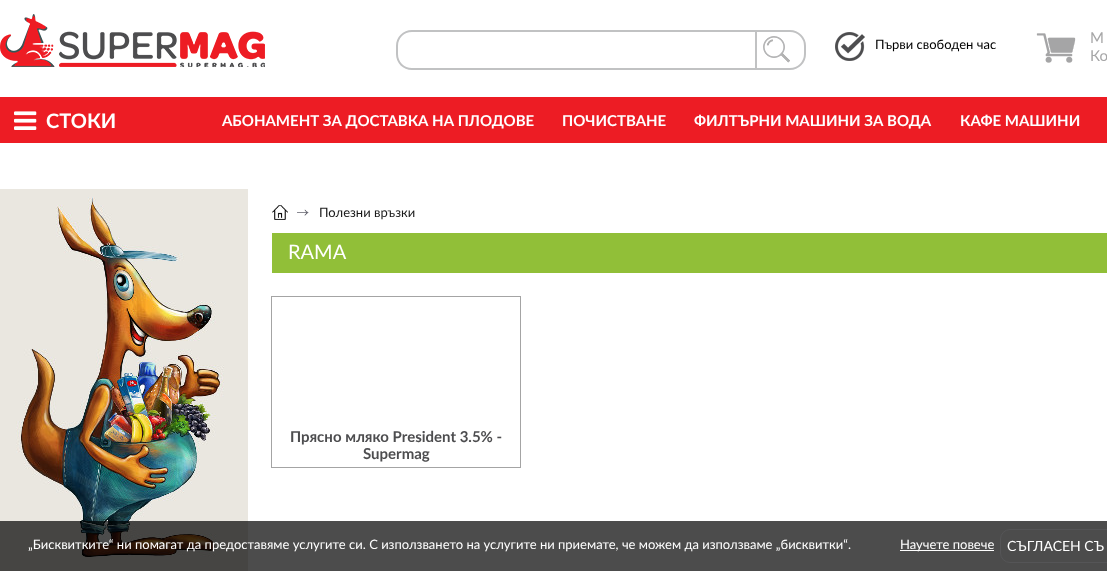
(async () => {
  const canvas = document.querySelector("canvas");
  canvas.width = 1107;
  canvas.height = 571;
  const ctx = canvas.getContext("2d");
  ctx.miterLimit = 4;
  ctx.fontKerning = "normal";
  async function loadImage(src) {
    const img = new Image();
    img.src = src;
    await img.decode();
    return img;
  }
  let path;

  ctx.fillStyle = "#ffffff";
  ctx.fillRect(0, 0, 1107, 571);
  ctx.drawImage(await loadImage("img/1.png"), 0, 14, 265, 53);
  ctx.fillStyle = "#c1c2c3";
  path = new Path2D("M412 30H755V70H412C403 70 396 63 396 54V46C396 37 403 30 412 30ZM412 32H755V68H412C404 68 398 62 398 54V46C398 38 404 32 412 32Z");
  ctx.fill(path, "evenodd");
  ctx.drawImage(await loadImage("img/2.png"), 763, 36, 27, 27);
  ctx.beginPath();
  ctx.roundRect(756, 31, 49, 38, [0, 15, 15, 0]);
  ctx.strokeStyle = "#c1c2c3";
  ctx.lineWidth = 2;
  ctx.stroke();
  ctx.drawImage(await loadImage("img/3.png"), 835, 32, 30, 29);
  ctx.drawImage(await loadImage("img/4.png"), 1036, 33, 40, 30);
  ctx.fillStyle = "#ed1c24";
  ctx.fillRect(0, 97, 1107, 46);
  ctx.drawImage(await loadImage("img/5.png"), 14, 111, 23, 19);
  ctx.fillStyle = "#eae7e0";
  ctx.fillRect(0, 189, 248, 382);
  ctx.drawImage(await loadImage("img/6.png"), 16, 197, 208, 360);
  ctx.drawImage(await loadImage("img/7.png"), 272, 205, 16, 15);
  ctx.drawImage(await loadImage("img/8.png"), 297, 209, 12, 7);
  ctx.fillStyle = "#91bf38";
  ctx.fillRect(272, 233, 835, 40);
  ctx.strokeStyle = "#a4a4a4";
  ctx.lineWidth = 1;
  ctx.strokeRect(271.5, 296.5, 249, 171);
  ctx.fillStyle = "rgba(0, 0, 0, 0.7)";
  ctx.fillRect(0, 521, 1107, 50);
  ctx.fillStyle = "#ffffff";
  ctx.fillRect(900, 550, 94, 1);
  ctx.beginPath();
  ctx.roundRect(1000.5, 529.5, 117, 33, 9.5);
  ctx.strokeStyle = "#555557";
  ctx.stroke();
  ctx.font = "13px Lato";
  ctx.fillStyle = "#000000";
  ctx.fillText("Първи свободен час", 875, 49);
  ctx.font = "15px Lato";
  ctx.fillStyle = "#a6a6a7";
  ctx.fillText("М", 1090, 43);
  ctx.fillText("Ко", 1090, 61);
  ctx.font = "bold 20px Lato";
  ctx.fillStyle = "#ffffff";
  ctx.fillText("СТОКИ", 46, 128);
  ctx.font = "bold 15px Lato";
  for (const [text, x, y] of [
    ["АБОНАМЕНТ ЗА ДОСТАВКА НА ПЛОДОВЕ", 222, 126],
    ["ПОЧИСТВАНЕ", 562, 126],
    ["ФИЛТЪРНИ МАШИНИ ЗА ВОДА", 694, 126],
    ["КАФЕ МАШИНИ", 960, 126],
  ]) {
    ctx.fillText(text, x, y);
  }
  ctx.font = "13px Lato";
  ctx.fillStyle = "#191919";
  ctx.fillText("Полезни връзки", 319, 217);
  ctx.font = "20px Lato";
  ctx.fillStyle = "#ffffff";
  ctx.fillText("RAMA", 288, 259);
  ctx.font = "bold 15px Lato";
  ctx.fillStyle = "#4d4d4f";
  ctx.fillText("Прясно мляко President 3.5% -", 290, 442);
  ctx.fillText("Supermag", 363, 459);
  ctx.font = "13px Lato";
  ctx.fillStyle = "#ffffff";
  ctx.fillText("„Бисквитките“ ни помагат да предоставяме услугите си. С използването на услугите ни приемате, че можем да използваме „бисквитки“.", 28, 549);
  ctx.fillText("Научете повече", 900, 549);
  ctx.font = "14px Lato";
  ctx.fillText("СЪГЛАСЕН СЪ", 1007, 551);
})();
